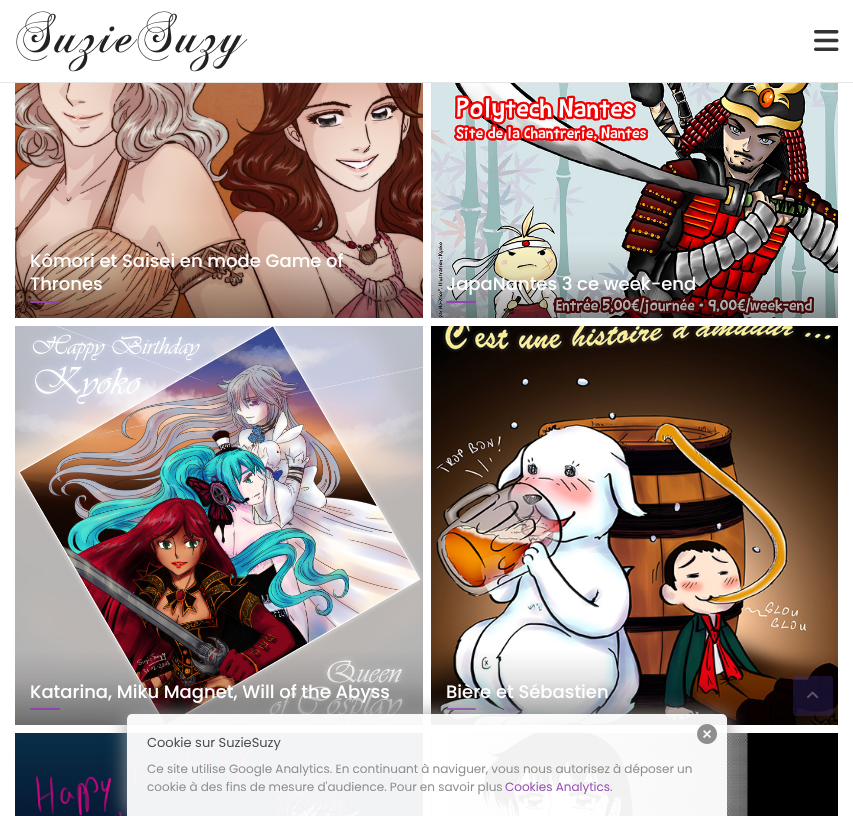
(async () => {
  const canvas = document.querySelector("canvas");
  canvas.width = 853;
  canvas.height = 816;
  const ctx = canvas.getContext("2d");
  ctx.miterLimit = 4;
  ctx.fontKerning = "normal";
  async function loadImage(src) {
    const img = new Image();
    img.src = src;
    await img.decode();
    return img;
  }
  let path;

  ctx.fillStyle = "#ffffff";
  ctx.fillRect(0, 0, 853, 816);
  ctx.fillStyle = "#e6e6e6";
  ctx.fillRect(0, 82, 853, 1);
  ctx.drawImage(await loadImage("img/1.png"), 16, 11, 232, 61);
  ctx.drawImage(await loadImage("img/2.png"), 814, 30, 25, 21);
  ctx.drawImage(await loadImage("img/3.png"), 15, 83, 408, 235);
  ctx.fillStyle = "#8f45ad";
  ctx.beginPath();
  ctx.roundRect(30, 301, 30, 2, 1);
  ctx.fill();
  ctx.drawImage(await loadImage("img/4.png"), 431, 83, 407, 235);
  ctx.beginPath();
  ctx.roundRect(446, 301, 30, 2, 1);
  ctx.fill();
  ctx.drawImage(await loadImage("img/5.png"), 15, 326, 408, 399);
  ctx.beginPath();
  ctx.roundRect(30, 708, 30, 2, 1);
  ctx.fill();
  ctx.drawImage(await loadImage("img/6.png"), 431, 326, 407, 399);
  ctx.beginPath();
  ctx.roundRect(446, 708, 30, 2, 1);
  ctx.fill();
  ctx.drawImage(await loadImage("img/7.png"), 15, 733, 408, 83);
  ctx.drawImage(await loadImage("img/8.png"), 431, 733, 407, 83);
  ctx.fillStyle = "rgba(61, 50, 147, 0.3)";
  ctx.beginPath();
  ctx.roundRect(793, 676, 40, 40, 3);
  ctx.fill();
  ctx.drawImage(await loadImage("img/9.png"), 807, 691, 12, 8);
  ctx.save();
  path = new Path2D("M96 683H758V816H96ZM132 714H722C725 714 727 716 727 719V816H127V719C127 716 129 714 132 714Z");
  ctx.clip(path, "evenodd");
  ctx.fillStyle = "rgba(161, 161, 161, 0.95)";
  ctx.filter = "blur(10px)";
  ctx.beginPath();
  ctx.roundRect(127, 714, 600, 102, 5);
  ctx.fill();
  ctx.filter = "none";
  ctx.restore();
  ctx.fillStyle = "rgba(255, 255, 255, 0.95)";
  ctx.beginPath();
  ctx.roundRect(127, 714, 600, 102, [5, 5, 0, 0]);
  ctx.fill();
  ctx.drawImage(await loadImage("img/10.png"), 697, 724, 20, 20);
  ctx.font = "500 18px Poppins";
  ctx.fillStyle = "#ffffff";
  for (const [text, x, y] of [
    ["Kômori et Saisei en mode Game of", 30, 267],
    ["Thrones", 30, 290],
    ["JapaNantes 3 ce week-end", 446, 290],
    ["Katarina, Miku Magnet, Will of the Abyss", 30, 698],
    ["Bière et Sébastien", 446, 698],
  ]) {
    ctx.fillText(text, x, y);
  }
  ctx.font = "13px Poppins";
  ctx.fillStyle = "#4d4d4d";
  ctx.fillText("Cookie sur SuzieSuzy", 147, 747);
  ctx.font = "12px Poppins";
  ctx.fillStyle = "#8d8d8e";
  ctx.fillText("Ce site utilise Google Analytics. En continuant à naviguer, vous nous autorisez à déposer un", 147, 773);
  ctx.fillText("cookie à des fins de mesure d'audience. Pour en savoir plus", 147, 791);
  ctx.fillStyle = "#944eb1";
  ctx.fillText("Cookies Analytics", 505, 791);
  ctx.fillStyle = "#818181";
  ctx.fillText(".", 610, 791);
})();
